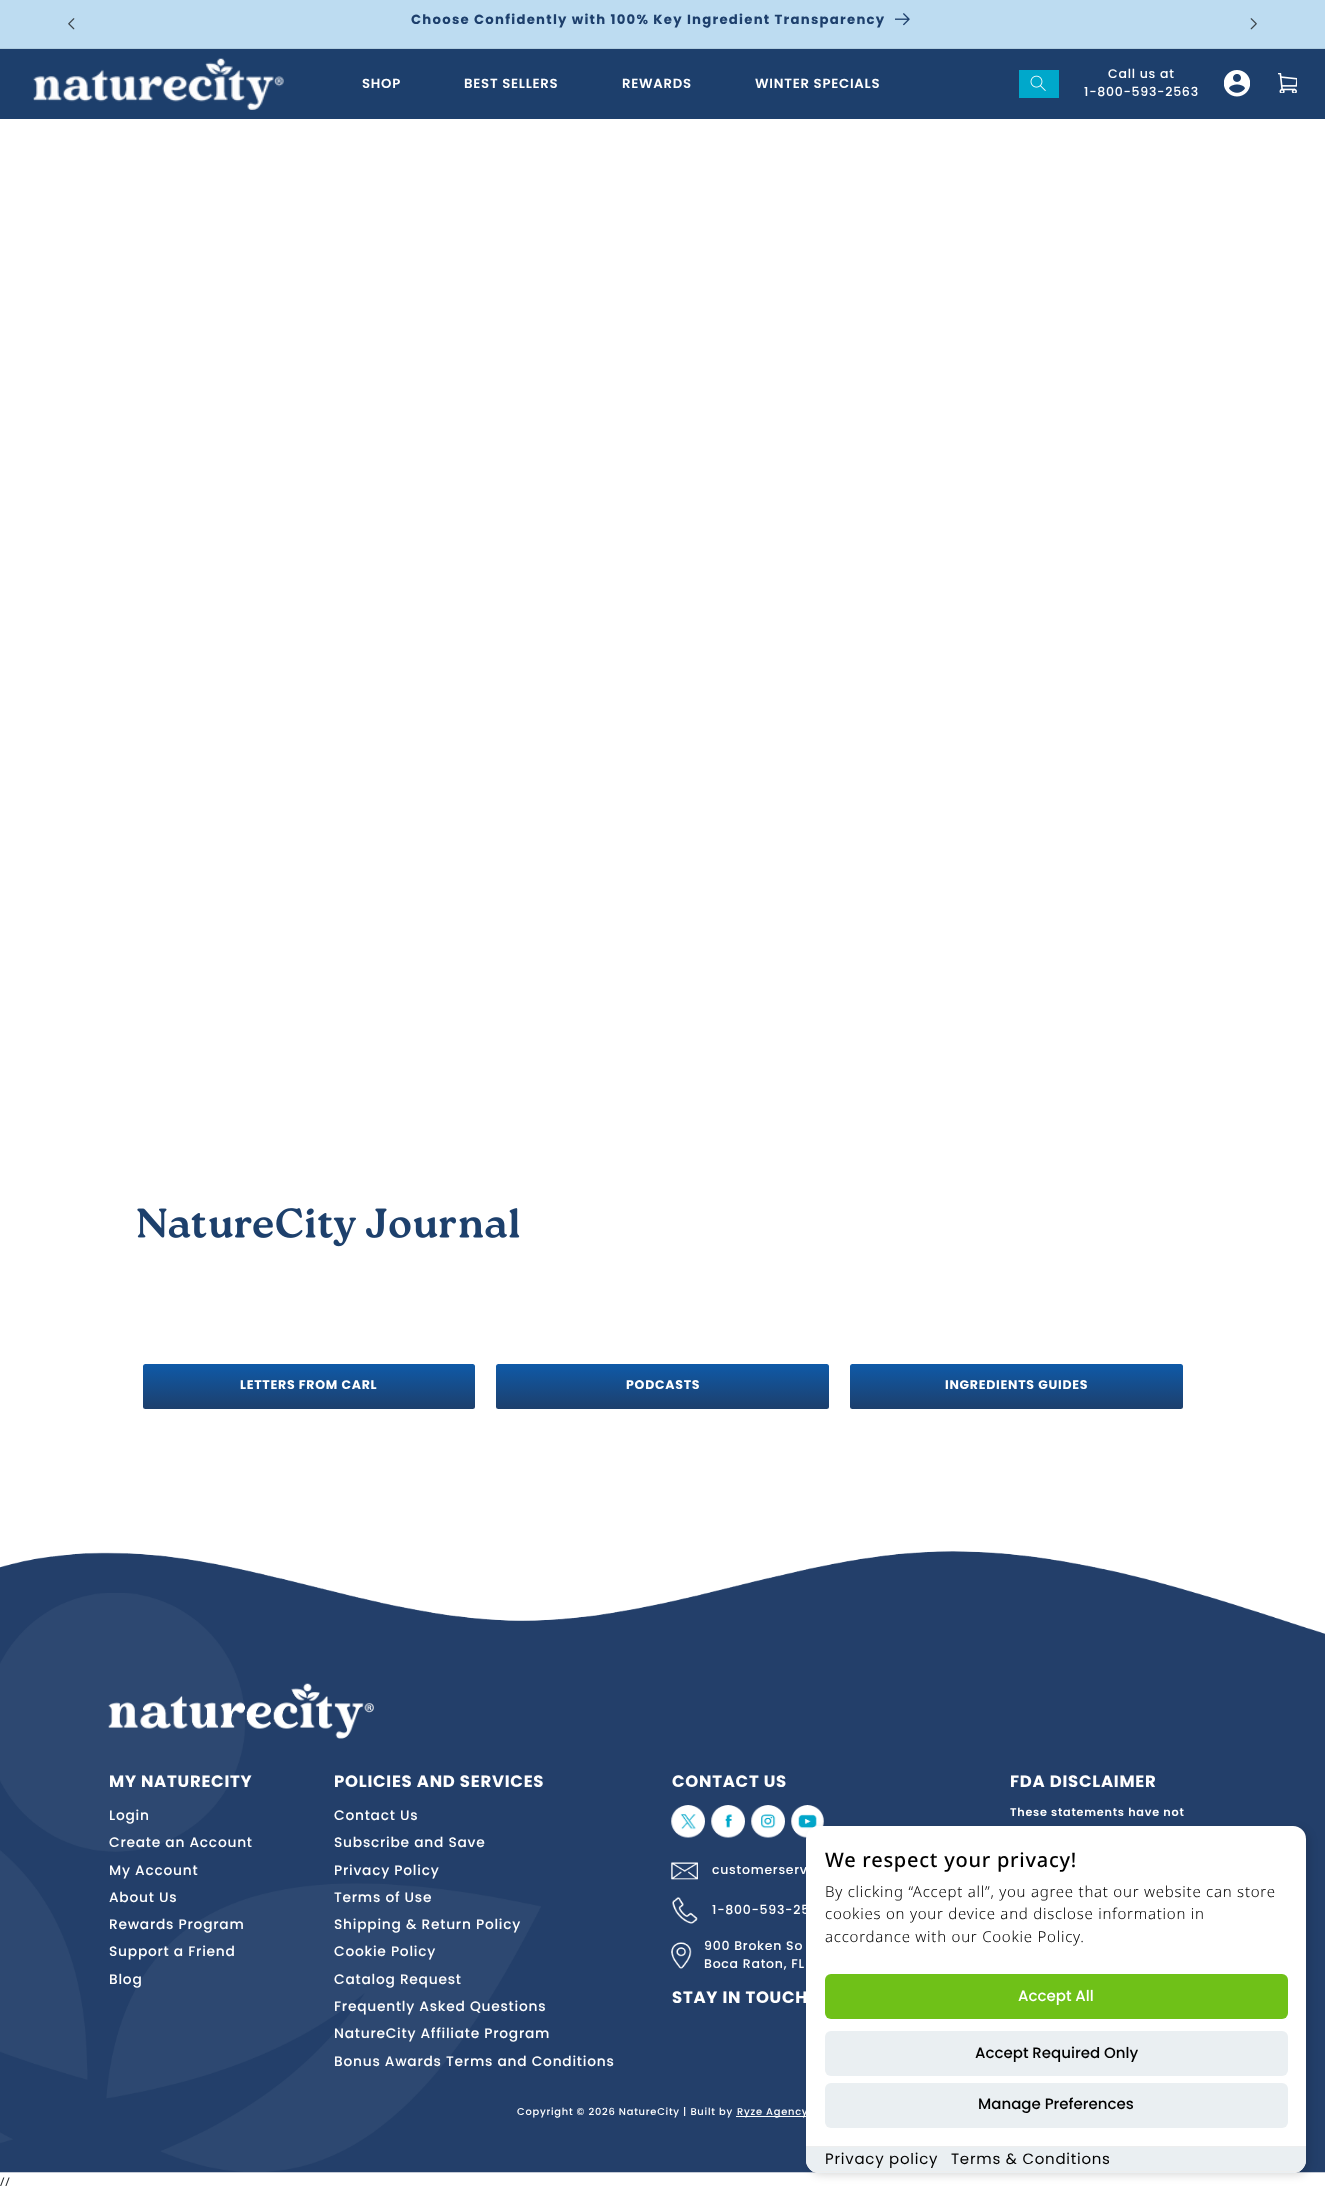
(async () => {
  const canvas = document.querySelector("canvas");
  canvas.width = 1325;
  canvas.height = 2191;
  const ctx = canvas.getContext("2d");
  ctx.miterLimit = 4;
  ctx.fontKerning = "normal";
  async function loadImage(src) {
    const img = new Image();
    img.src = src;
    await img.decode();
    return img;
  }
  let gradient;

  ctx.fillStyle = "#ffffff";
  ctx.fillRect(0, 0, 1325, 2191);
  ctx.fillStyle = "#bddcf1";
  ctx.fillRect(0, 0, 1325, 48);
  ctx.fillStyle = "#afccdf";
  ctx.fillRect(0, 48, 1325, 1);
  ctx.drawImage(await loadImage("img/1.png"), 68, 18, 7, 12);
  ctx.drawImage(await loadImage("img/2.png"), 895, 13, 15, 13);
  ctx.drawImage(await loadImage("img/3.png"), 1250, 18, 7, 12);
  ctx.fillStyle = "#1d3f6c";
  ctx.fillRect(0, 49, 1325, 70);
  ctx.drawImage(await loadImage("img/4.png"), 33, 58, 251, 52);
  ctx.fillStyle = "#00a8cb";
  ctx.fillRect(1019, 70, 40, 28);
  ctx.drawImage(await loadImage("img/5.png"), 1030, 75, 16, 16);
  ctx.drawImage(await loadImage("img/6.png"), 1224, 70, 26, 27);
  ctx.drawImage(await loadImage("img/7.png"), 1278, 73, 19, 20);
  ctx.drawImage(await loadImage("img/8.png"), 137, 1208, 383, 39);
  gradient = ctx.createLinearGradient(309, 1409, 309, 1364);
  gradient.addColorStop(0, "#1d3f6c");
  gradient.addColorStop(1, "#0f5aa8");
  ctx.fillStyle = gradient;
  ctx.beginPath();
  ctx.roundRect(143, 1364, 332, 45, 2.5);
  ctx.fill();
  gradient = ctx.createLinearGradient(663, 1409, 663, 1364);
  gradient.addColorStop(0, "#1d3f6c");
  gradient.addColorStop(1, "#0f5aa8");
  ctx.fillStyle = gradient;
  ctx.beginPath();
  ctx.roundRect(496, 1364, 333, 45, 2.5);
  ctx.fill();
  gradient = ctx.createLinearGradient(1016, 1409, 1016, 1364);
  gradient.addColorStop(0, "#1d3f6c");
  gradient.addColorStop(1, "#0f5aa8");
  ctx.fillStyle = gradient;
  ctx.beginPath();
  ctx.roundRect(850, 1364, 333, 45, 2.5);
  ctx.fill();
  ctx.drawImage(await loadImage("img/9.png"), 0, 1551, 1325, 622);
  ctx.drawImage(await loadImage("img/10.png"), 108, 1683, 266, 56);
  ctx.drawImage(await loadImage("img/11.png"), 671, 1805, 34, 33);
  ctx.drawImage(await loadImage("img/12.png"), 711, 1805, 34, 33);
  ctx.drawImage(await loadImage("img/13.png"), 751, 1805, 34, 33);
  ctx.drawImage(await loadImage("img/14.png"), 791, 1805, 33, 33);
  ctx.drawImage(await loadImage("img/15.png"), 671, 1862, 27, 18);
  ctx.drawImage(await loadImage("img/16.png"), 672, 1897, 26, 27);
  ctx.drawImage(await loadImage("img/17.png"), 671, 1942, 21, 27);
  ctx.fillStyle = "#ffffff";
  ctx.fillRect(736, 2116, 73, 1);
  ctx.fillStyle = "rgba(0, 0, 0, 0.15)";
  ctx.filter = "blur(4px)";
  ctx.beginPath();
  ctx.roundRect(809, 1829, 500, 346, 13);
  ctx.fill();
  ctx.filter = "none";
  ctx.fillStyle = "#ffffff";
  ctx.beginPath();
  ctx.roundRect(806, 1826, 500, 347, 13);
  ctx.fill();
  ctx.fillStyle = "#6fc118";
  ctx.beginPath();
  ctx.roundRect(825, 1974, 463, 45, 6);
  ctx.fill();
  ctx.fillStyle = "#eaeff2";
  ctx.beginPath();
  ctx.roundRect(825, 2031, 463, 45, 6);
  ctx.fill();
  ctx.beginPath();
  ctx.roundRect(825, 2083, 463, 45, 6);
  ctx.fill();
  ctx.beginPath();
  ctx.roundRect(806, 2146, 500, 27, [0, 0, 13, 13]);
  ctx.fill();
  ctx.fillStyle = "#eeeeee";
  ctx.fillRect(806, 2146, 500, 1);
  ctx.save();
  ctx.beginPath();
  ctx.roundRect(806, 1826, 500, 347, 13);
  ctx.clip();
  ctx.fillRect(806, 2171, 500, 1);
  ctx.restore();
  ctx.letterSpacing = "1.25px";
  ctx.font = "bold 13.25px Poppins";
  ctx.fillStyle = "#1d3f6c";
  ctx.fillText("Choose Confidently with 100% Key Ingredient Transparency", 411, 24);
  ctx.letterSpacing = "0.75px";
  ctx.font = "600 13.25px Poppins";
  ctx.fillStyle = "#ffffff";
  for (const [text, x, y] of [
    ["SHOP", 362, 88],
    ["BEST SELLERS", 464, 88],
    ["REWARDS", 622, 88],
    ["WINTER SPECIALS", 755, 88],
  ]) {
    ctx.fillText(text, x, y);
  }
  ctx.font = "500 12.5px Poppins";
  ctx.fillText("Call us at", 1108, 78);
  ctx.fillText("1-800-593-2563", 1084, 96);
  ctx.font = "bold 12.5px Poppins";
  for (const [text, x, y] of [
    ["LETTERS FROM CARL", 240, 1389],
    ["PODCASTS", 626, 1389],
    ["INGREDIENTS GUIDES", 945, 1389],
  ]) {
    ctx.fillText(text, x, y);
  }
  ctx.font = "bold 16.5px Poppins";
  ctx.fillText("MY NATURECITY", 109, 1787);
  ctx.font = "500 13.8px Poppins";
  for (const [text, x, y] of [
    ["Login", 109, 1820],
    ["Create an Account", 109, 1847],
    ["My Account", 109, 1875],
    ["About Us", 109, 1902],
    ["Rewards Program", 109, 1929],
    ["Support a Friend", 109, 1956],
    ["Blog", 109, 1984],
  ]) {
    ctx.fillText(text, x, y);
  }
  ctx.font = "bold 16.5px Poppins";
  ctx.fillText("POLICIES AND SERVICES", 334, 1787);
  ctx.font = "500 13.8px Poppins";
  for (const [text, x, y] of [
    ["Contact Us", 334, 1820],
    ["Subscribe and Save", 334, 1847],
    ["Privacy Policy", 334, 1875],
    ["Terms of Use", 334, 1902],
    ["Shipping & Return Policy", 334, 1929],
    ["Cookie Policy", 334, 1956],
    ["Catalog Request", 334, 1984],
    ["Frequently Asked Questions", 334, 2011],
    ["NatureCity Affiliate Program", 334, 2038],
    ["Bonus Awards Terms and Conditions", 334, 2066],
  ]) {
    ctx.fillText(text, x, y);
  }
  ctx.font = "bold 16.5px Poppins";
  ctx.fillText("CONTACT US", 672, 1787);
  ctx.font = "500 12.5px Poppins";
  for (const [text, x, y] of [
    ["customerserv", 712, 1874],
    ["1-800-593-25", 712, 1914],
    ["900 Broken So", 704, 1950],
    ["Boca Raton, FL", 704, 1968],
  ]) {
    ctx.fillText(text, x, y);
  }
  ctx.font = "bold 16.5px Poppins";
  ctx.fillText("STAY IN TOUCH", 672, 2003);
  ctx.fillText("FDA DISCLAIMER", 1010, 1787);
  ctx.font = "600 11.25px Poppins";
  ctx.fillText("These statements have not", 1010, 1816);
  ctx.font = "500 9.9px Poppins";
  ctx.fillText("Copyright © 2026 NatureCity | Built by", 517, 2115);
  ctx.fillText("Ryze Agency", 737, 2115);
  ctx.font = "500 20px Noto Sans";
  ctx.fillStyle = "#000000";
  ctx.fillText("We respect your privacy!", 825, 1867);
  ctx.font = "300 15px Noto Sans";
  for (const [text, x, y] of [
    ["By clicking “Accept all”, you agree that our website can store", 825, 1897],
    ["cookies on your device and disclose information in", 825, 1919],
    ["accordance with our Cookie Policy.", 825, 1942],
  ]) {
    ctx.fillText(text, x, y);
  }
  ctx.letterSpacing = "0px";
  ctx.font = "500 15px Poppins";
  ctx.fillStyle = "#ffffff";
  ctx.fillText("Accept All", 1018, 2001);
  ctx.fillStyle = "#000000";
  ctx.fillText("Accept Required Only", 975, 2058);
  ctx.fillText("Manage Preferences", 978, 2109);
  ctx.letterSpacing = "0.75px";
  ctx.font = "15px Poppins";
  ctx.fillText("Privacy policy", 825, 2164);
  ctx.fillText("Terms & Conditions", 951, 2164);
  ctx.font = "12px Noto Sans";
  ctx.fillStyle = "#212529";
  ctx.fillText("//", 0, 2186);
})();
